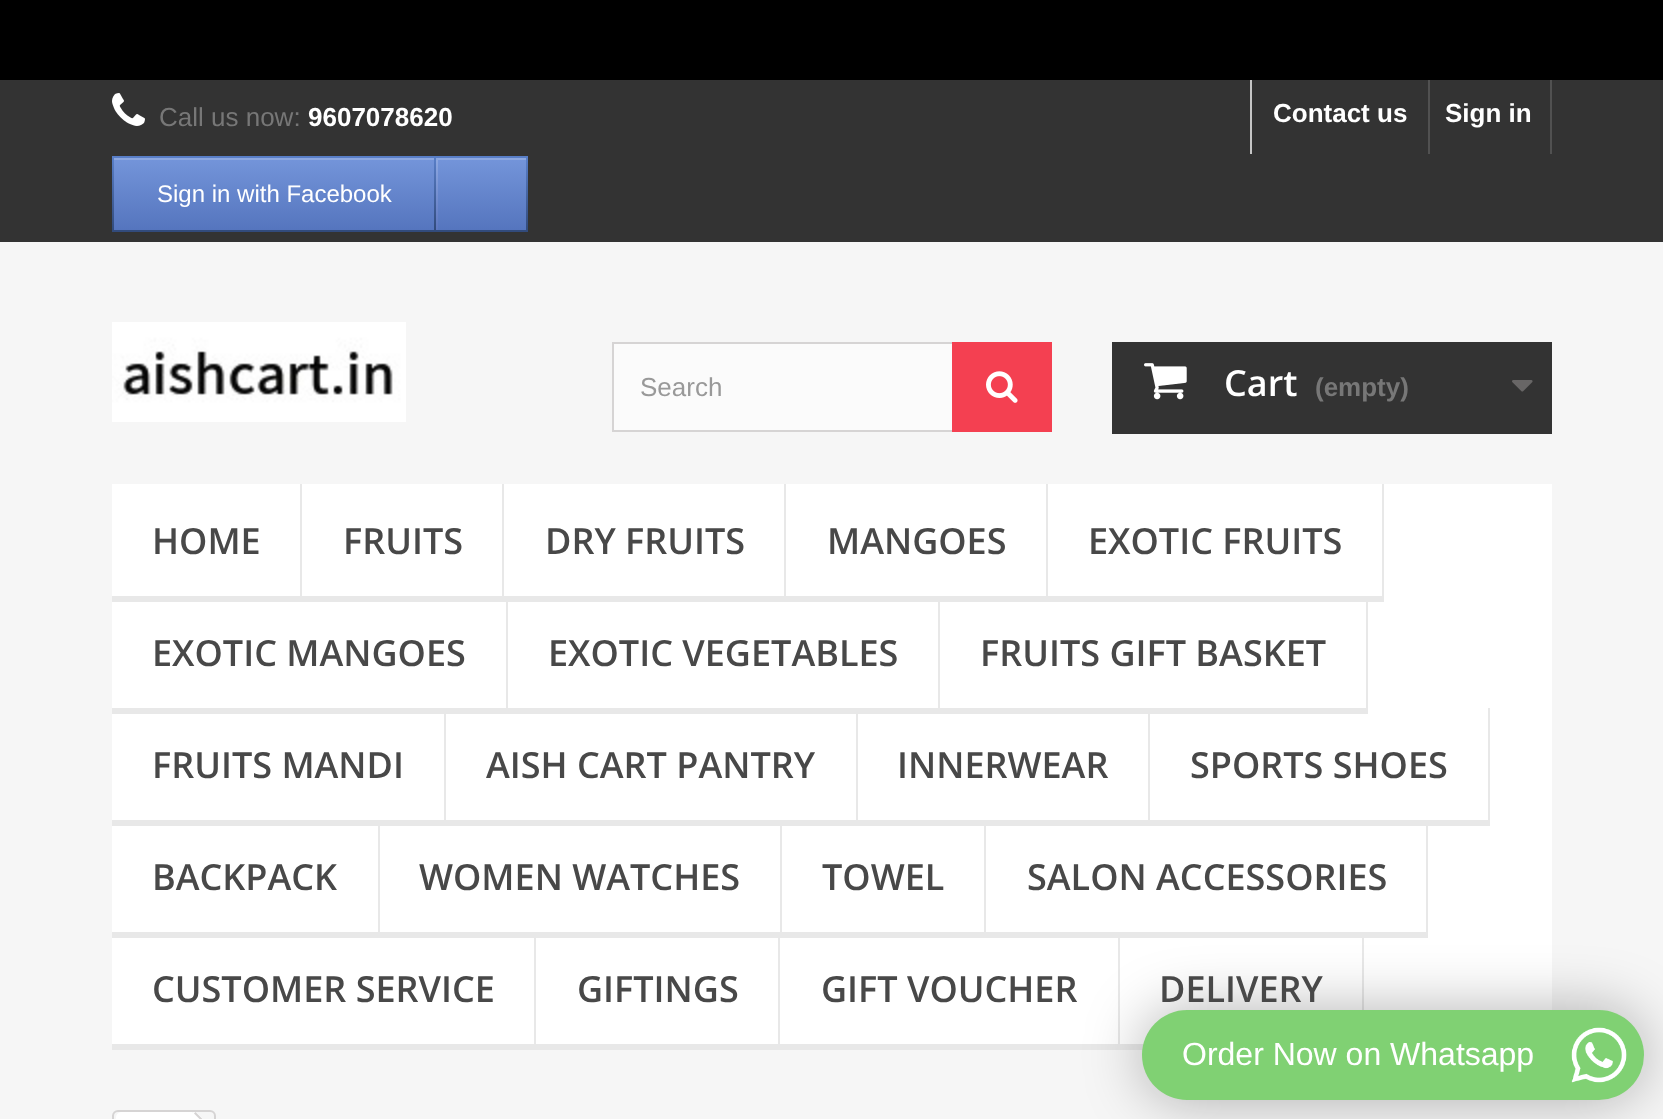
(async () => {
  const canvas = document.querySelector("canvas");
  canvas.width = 1663;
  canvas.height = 1119;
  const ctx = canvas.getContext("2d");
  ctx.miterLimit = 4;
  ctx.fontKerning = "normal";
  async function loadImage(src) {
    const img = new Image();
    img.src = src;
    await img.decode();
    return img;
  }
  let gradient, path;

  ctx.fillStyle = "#f6f6f6";
  ctx.fillRect(0, 0, 1663, 1119);
  ctx.fillStyle = "#000000";
  ctx.fillRect(0, 0, 1663, 80);
  ctx.fillStyle = "#333333";
  ctx.fillRect(0, 80, 1663, 162);
  ctx.drawImage(await loadImage("img/1.png"), 112, 93, 33, 33);
  for (const [x, y, w, h, color] of [
    [1250, 80, 2, 74, "#c6c6c6"],
    [1550, 80, 2, 74, "#515151"],
    [1428, 80, 2, 74, "#515151"],
  ]) {
    ctx.fillStyle = color;
    ctx.fillRect(x, y, w, h);
  }
  gradient = ctx.createLinearGradient(320, 158, 320, 230);
  gradient.addColorStop(0, "#7495da");
  gradient.addColorStop(1, "#5575be");
  ctx.fillStyle = gradient;
  ctx.fillRect(114, 160, 412, 70);
  ctx.fillStyle = "#587ec7";
  ctx.fillRect(112, 156, 416, 2);
  ctx.fillStyle = "#324b7c";
  ctx.fillRect(112, 230, 416, 2);
  gradient = ctx.createLinearGradient(435, 158, 435, 230);
  gradient.addColorStop(0, "#587ec7");
  gradient.addColorStop(1, "#324b7c");
  ctx.fillStyle = gradient;
  ctx.fillRect(434, 158, 2, 72);
  gradient = ctx.createLinearGradient(113, 158, 113, 230);
  gradient.addColorStop(0, "#587ec7");
  gradient.addColorStop(1, "#324b7c");
  ctx.fillStyle = gradient;
  ctx.fillRect(112, 158, 2, 72);
  ctx.fillStyle = "#8da8e1";
  ctx.fillRect(114, 158, 320, 2);
  gradient = ctx.createLinearGradient(527, 158, 527, 230);
  gradient.addColorStop(0, "#587ec7");
  gradient.addColorStop(1, "#324b7c");
  ctx.fillStyle = gradient;
  ctx.fillRect(526, 158, 2, 72);
  gradient = ctx.createLinearGradient(437, 158, 437, 230);
  gradient.addColorStop(0, "#8da8e1");
  gradient.addColorStop(1, "#5e77bf");
  ctx.fillStyle = gradient;
  ctx.fillRect(436, 158, 2, 72);
  ctx.fillStyle = "#8da8e1";
  ctx.fillRect(438, 158, 88, 2);
  ctx.drawImage(await loadImage("img/2.png"), 112, 322, 294, 100);
  ctx.fillStyle = "#fbfbfb";
  ctx.fillRect(614, 344, 338, 86);
  ctx.strokeStyle = "#d6d4d4";
  ctx.lineWidth = 2;
  ctx.strokeRect(613, 343, 438, 88);
  ctx.fillStyle = "#f44051";
  ctx.fillRect(952, 342, 100, 90);
  ctx.drawImage(await loadImage("img/3.png"), 986, 371, 32, 32);
  ctx.fillStyle = "#333333";
  ctx.fillRect(1112, 342, 440, 92);
  ctx.drawImage(await loadImage("img/4.png"), 1144, 363, 43, 37);
  ctx.drawImage(await loadImage("img/5.png"), 1512, 380, 21, 12);
  for (const [x, y, w, h, color] of [
    [112, 484, 1440, 560, "#ffffff"],
    [112, 1044, 1032, 6, "#e8e8e8"],
    [300, 484, 2, 118, "#e8e8e8"],
    [112, 596, 188, 6, "#e8e8e8"],
    [502, 484, 2, 118, "#e8e8e8"],
    [302, 596, 200, 6, "#e8e8e8"],
    [784, 484, 2, 118, "#e8e8e8"],
    [504, 596, 280, 6, "#e8e8e8"],
    [1046, 484, 2, 118, "#e8e8e8"],
    [786, 596, 260, 6, "#e8e8e8"],
    [1382, 484, 2, 118, "#e8e8e8"],
    [1048, 596, 334, 6, "#e8e8e8"],
    [506, 596, 2, 118, "#e8e8e8"],
    [112, 708, 394, 6, "#e8e8e8"],
    [938, 596, 2, 118, "#e8e8e8"],
    [508, 708, 430, 6, "#e8e8e8"],
    [1366, 596, 2, 118, "#e8e8e8"],
    [940, 708, 426, 6, "#e8e8e8"],
    [444, 708, 2, 118, "#e8e8e8"],
    [112, 820, 332, 6, "#e8e8e8"],
    [856, 708, 2, 118, "#e8e8e8"],
    [446, 820, 410, 6, "#e8e8e8"],
    [1148, 708, 2, 118, "#e8e8e8"],
    [858, 820, 290, 6, "#e8e8e8"],
    [1488, 708, 2, 118, "#e8e8e8"],
    [1150, 820, 338, 6, "#e8e8e8"],
    [378, 820, 2, 118, "#e8e8e8"],
    [112, 932, 266, 6, "#e8e8e8"],
    [780, 820, 2, 118, "#e8e8e8"],
    [380, 932, 400, 6, "#e8e8e8"],
    [984, 820, 2, 118, "#e8e8e8"],
    [782, 932, 202, 6, "#e8e8e8"],
    [1426, 820, 2, 118, "#e8e8e8"],
    [986, 932, 440, 6, "#e8e8e8"],
    [534, 932, 2, 118, "#e8e8e8"],
    [778, 932, 2, 118, "#e8e8e8"],
    [1118, 932, 2, 118, "#e8e8e8"],
    [1362, 932, 2, 78, "#e8e8e8"],
  ]) {
    ctx.fillStyle = color;
    ctx.fillRect(x, y, w, h);
  }
  ctx.beginPath();
  ctx.roundRect(113, 1111, 102, 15, 5);
  ctx.stroke();
  ctx.fillStyle = "#ffffff";
  path = new Path2D("M122 1112H192V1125H122C118.5 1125 116 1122.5 116 1119V1118C116 1114.5 118.5 1112 122 1112Z");
  ctx.fill(path);
  path = new Path2D("M197 1113L214 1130V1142L197 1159C195 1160 193 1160 191 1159L171 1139C170 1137 170 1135 171 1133L191 1113C193 1112 195 1112 197 1113Z");
  ctx.fill(path);
  ctx.fillStyle = "#d6d4d4";
  path = new Path2D("M195.5 1112L214 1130.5V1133.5L194 1113.5Z");
  ctx.fill(path);
  ctx.fillStyle = "rgba(0, 0, 0, 0.3)";
  ctx.filter = "blur(30px)";
  ctx.beginPath();
  ctx.roundRect(1142, 1010, 502, 90, 45);
  ctx.fill();
  ctx.filter = "none";
  ctx.fillStyle = "#80d173";
  ctx.beginPath();
  ctx.roundRect(1142, 1010, 502, 90, 45);
  ctx.fill();
  ctx.drawImage(await loadImage("img/6.png"), 1571, 1027, 56, 56);
  ctx.font = "26px Liberation Sans";
  ctx.fillStyle = "#777777";
  ctx.fillText("Call us now:", 159, 126);
  ctx.font = "bold 26px Liberation Sans";
  ctx.fillStyle = "#ffffff";
  for (const [text, x, y] of [
    ["9607078620", 308, 126],
    ["Contact us", 1273, 122],
    ["Sign in", 1445, 122],
  ]) {
    ctx.fillText(text, x, y);
  }
  ctx.font = "24px Liberation Sans";
  ctx.fillText("Sign in with Facebook", 157, 202);
  ctx.font = "26px Liberation Sans";
  ctx.fillStyle = "#999999";
  ctx.fillText("Search", 640, 396);
  ctx.font = "600 36px Open Sans";
  ctx.fillStyle = "#ffffff";
  ctx.fillText("Cart", 1224, 396);
  ctx.font = "bold 26px Liberation Sans";
  ctx.fillStyle = "#777777";
  ctx.fillText("(empty)", 1315, 396);
  ctx.font = "600 36px Open Sans";
  ctx.fillStyle = "#484848";
  for (const [text, x, y] of [
    ["HOME", 152, 554],
    ["FRUITS", 343, 554],
    ["DRY FRUITS", 545, 554],
    ["MANGOES", 827, 554],
    ["EXOTIC FRUITS", 1088, 554],
    ["EXOTIC MANGOES", 152, 666],
    ["EXOTIC VEGETABLES", 548, 666],
    ["FRUITS GIFT BASKET", 980, 666],
    ["FRUITS MANDI", 152, 778],
    ["AISH CART PANTRY", 486, 778],
    ["INNERWEAR", 897, 778],
    ["SPORTS SHOES", 1190, 778],
    ["BACKPACK", 152, 890],
    ["WOMEN WATCHES", 419, 890],
    ["TOWEL", 822, 890],
    ["SALON ACCESSORIES", 1027, 890],
    ["CUSTOMER SERVICE", 152, 1002],
    ["GIFTINGS", 577, 1002],
    ["GIFT VOUCHER", 821, 1002],
    ["DELIVERY", 1159, 1002],
  ]) {
    ctx.fillText(text, x, y);
  }
  ctx.font = "32px Liberation Sans";
  ctx.fillStyle = "#ffffff";
  ctx.fillText("Order Now on Whatsapp", 1182, 1065);
})();
